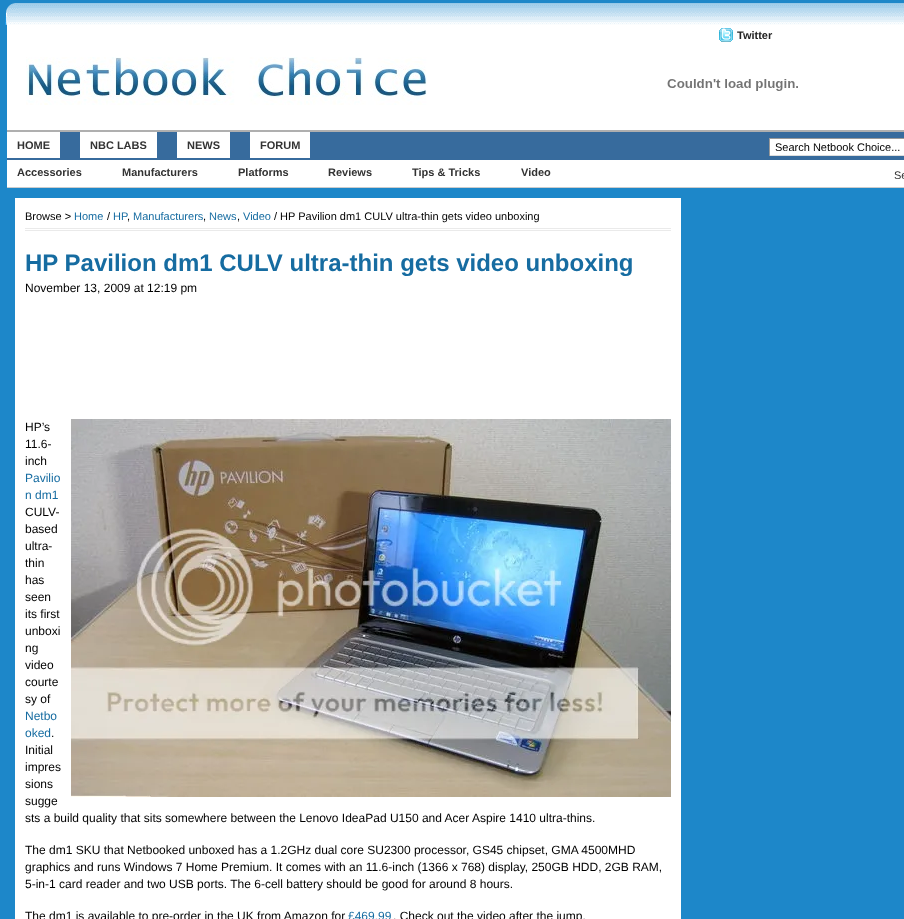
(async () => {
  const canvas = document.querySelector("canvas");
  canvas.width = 904;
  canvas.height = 919;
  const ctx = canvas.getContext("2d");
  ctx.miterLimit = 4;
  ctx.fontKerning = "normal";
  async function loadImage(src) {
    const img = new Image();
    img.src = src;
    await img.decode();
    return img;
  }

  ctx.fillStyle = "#1d87c9";
  ctx.fillRect(0, 0, 904, 919);
  ctx.drawImage(await loadImage("img/1.png"), 5, 3, 899, 22);
  ctx.fillStyle = "#ffffff";
  ctx.fillRect(7, 25, 897, 105);
  ctx.drawImage(await loadImage("img/2.png"), 719, 28, 14, 14);
  ctx.drawImage(await loadImage("img/3.png"), 667, 79, 131, 12);
  ctx.drawImage(await loadImage("img/4.png"), 26, 57, 401, 48);
  for (const [x, y, w, h, color] of [
    [7, 132, 897, 28, "#376b9d"],
    [7, 130, 897, 2, "#afafaf"],
    [7, 132, 53, 26, "#ffffff"],
    [80, 132, 77, 26, "#ffffff"],
    [177, 132, 53, 26, "#ffffff"],
    [250, 132, 60, 26, "#ffffff"],
    [770, 139, 134, 16, "#ffffff"],
    [769, 138, 135, 1, "#999999"],
    [769, 155, 135, 1, "#dddddd"],
    [769, 138, 1, 18, "#999999"],
    [7, 160, 897, 27, "#ffffff"],
    [7, 187, 897, 1, "#cccccc"],
    [15, 198, 666, 721, "#ffffff"],
    [25, 228, 646, 1, "#eaeaea"],
    [25, 230, 646, 1, "#eaeaea"],
  ]) {
    ctx.fillStyle = color;
    ctx.fillRect(x, y, w, h);
  }
  ctx.drawImage(await loadImage("img/5.png"), 71, 419, 600, 378);
  ctx.font = "bold 11px Liberation Sans";
  ctx.fillStyle = "#222222";
  ctx.fillText("Twitter", 737, 39);
  ctx.fillStyle = "#333333";
  for (const [text, x, y] of [
    ["HOME", 17, 149],
    ["NBC LABS", 90, 149],
    ["NEWS", 187, 149],
    ["FORUM", 260, 149],
  ]) {
    ctx.fillText(text, x, y);
  }
  ctx.font = "11px Liberation Sans";
  ctx.fillStyle = "#000000";
  ctx.fillText("Search Netbook Choice...", 775, 151);
  ctx.font = "bold 11px Liberation Sans";
  ctx.fillStyle = "#333333";
  for (const [text, x, y] of [
    ["Accessories", 17, 176],
    ["Manufacturers", 122, 176],
    ["Platforms", 238, 176],
    ["Reviews", 328, 176],
    ["Tips & Tricks", 412, 176],
    ["Video", 521, 176],
  ]) {
    ctx.fillText(text, x, y);
  }
  ctx.font = "11px Liberation Sans";
  ctx.fillText("Se", 894, 179);
  ctx.fillStyle = "#000000";
  ctx.fillText("Browse >", 25, 220);
  ctx.fillStyle = "#166ca1";
  ctx.fillText("Home", 74, 220);
  ctx.fillStyle = "#000000";
  ctx.fillText("/", 107, 220);
  ctx.fillStyle = "#166ca1";
  for (const [text, x, y] of [
    ["HP", 113, 220],
    ["Manufacturers", 133, 220],
    ["News", 209, 220],
    ["Video", 243, 220],
  ]) {
    ctx.fillText(text, x, y);
  }
  ctx.fillStyle = "#000000";
  for (const [text, x, y] of [
    ["/ HP Pavilion dm1 CULV ultra-thin gets video unboxing", 274, 220],
    [",", 127, 220],
    [",", 203, 220],
    [",", 237, 220],
  ]) {
    ctx.fillText(text, x, y);
  }
  ctx.font = "bold 24px Liberation Sans";
  ctx.fillStyle = "#166ca1";
  ctx.fillText("HP Pavilion dm1 CULV ultra-thin gets video unboxing", 25, 271);
  ctx.font = "12px Liberation Sans";
  ctx.fillStyle = "#000000";
  for (const [text, x, y] of [
    ["November 13, 2009 at 12:19 pm", 25, 292],
    ["HP’s", 25, 431],
    ["11.6-", 25, 448],
    ["inch", 25, 465],
  ]) {
    ctx.fillText(text, x, y);
  }
  ctx.fillStyle = "#166ca1";
  ctx.fillText("Pavilio", 25, 482);
  ctx.fillText("n dm1", 25, 499);
  ctx.fillStyle = "#000000";
  for (const [text, x, y] of [
    ["CULV-", 25, 516],
    ["based", 25, 533],
    ["ultra-", 25, 550],
    ["thin", 25, 567],
    ["has", 25, 584],
    ["seen", 25, 601],
    ["its first", 25, 618],
    ["unboxi", 25, 635],
    ["ng", 25, 652],
    ["video", 25, 669],
    ["courte", 25, 686],
    ["sy of", 25, 703],
  ]) {
    ctx.fillText(text, x, y);
  }
  ctx.fillStyle = "#166ca1";
  ctx.fillText("Netbo", 25, 720);
  ctx.fillText("oked", 25, 737);
  ctx.fillStyle = "#000000";
  for (const [text, x, y] of [
    [".", 51, 737],
    ["Initial", 25, 754],
    ["impres", 25, 771],
    ["sions", 25, 788],
    ["sugge", 25, 805],
    ["sts a build quality that sits somewhere between the Lenovo IdeaPad U150 and Acer Aspire 1410 ultra-thins.", 25, 822],
    ["The dm1 SKU that Netbooked unboxed has a 1.2GHz dual core SU2300 processor, GS45 chipset, GMA 4500MHD", 25, 854],
    ["graphics and runs Windows 7 Home Premium. It comes with an 11.6-inch (1366 x 768) display, 250GB HDD, 2GB RAM,", 25, 871],
    ["5-in-1 card reader and two USB ports. The 6-cell battery should be good for around 8 hours.", 25, 888],
    ["The dm1 is available to pre-order in the UK from Amazon for", 25, 920],
  ]) {
    ctx.fillText(text, x, y);
  }
  ctx.fillStyle = "#166ca1";
  ctx.fillText("£469.99", 348, 920);
  ctx.fillStyle = "#000000";
  ctx.fillText(". Check out the video after the jump.", 393, 920);
})();
